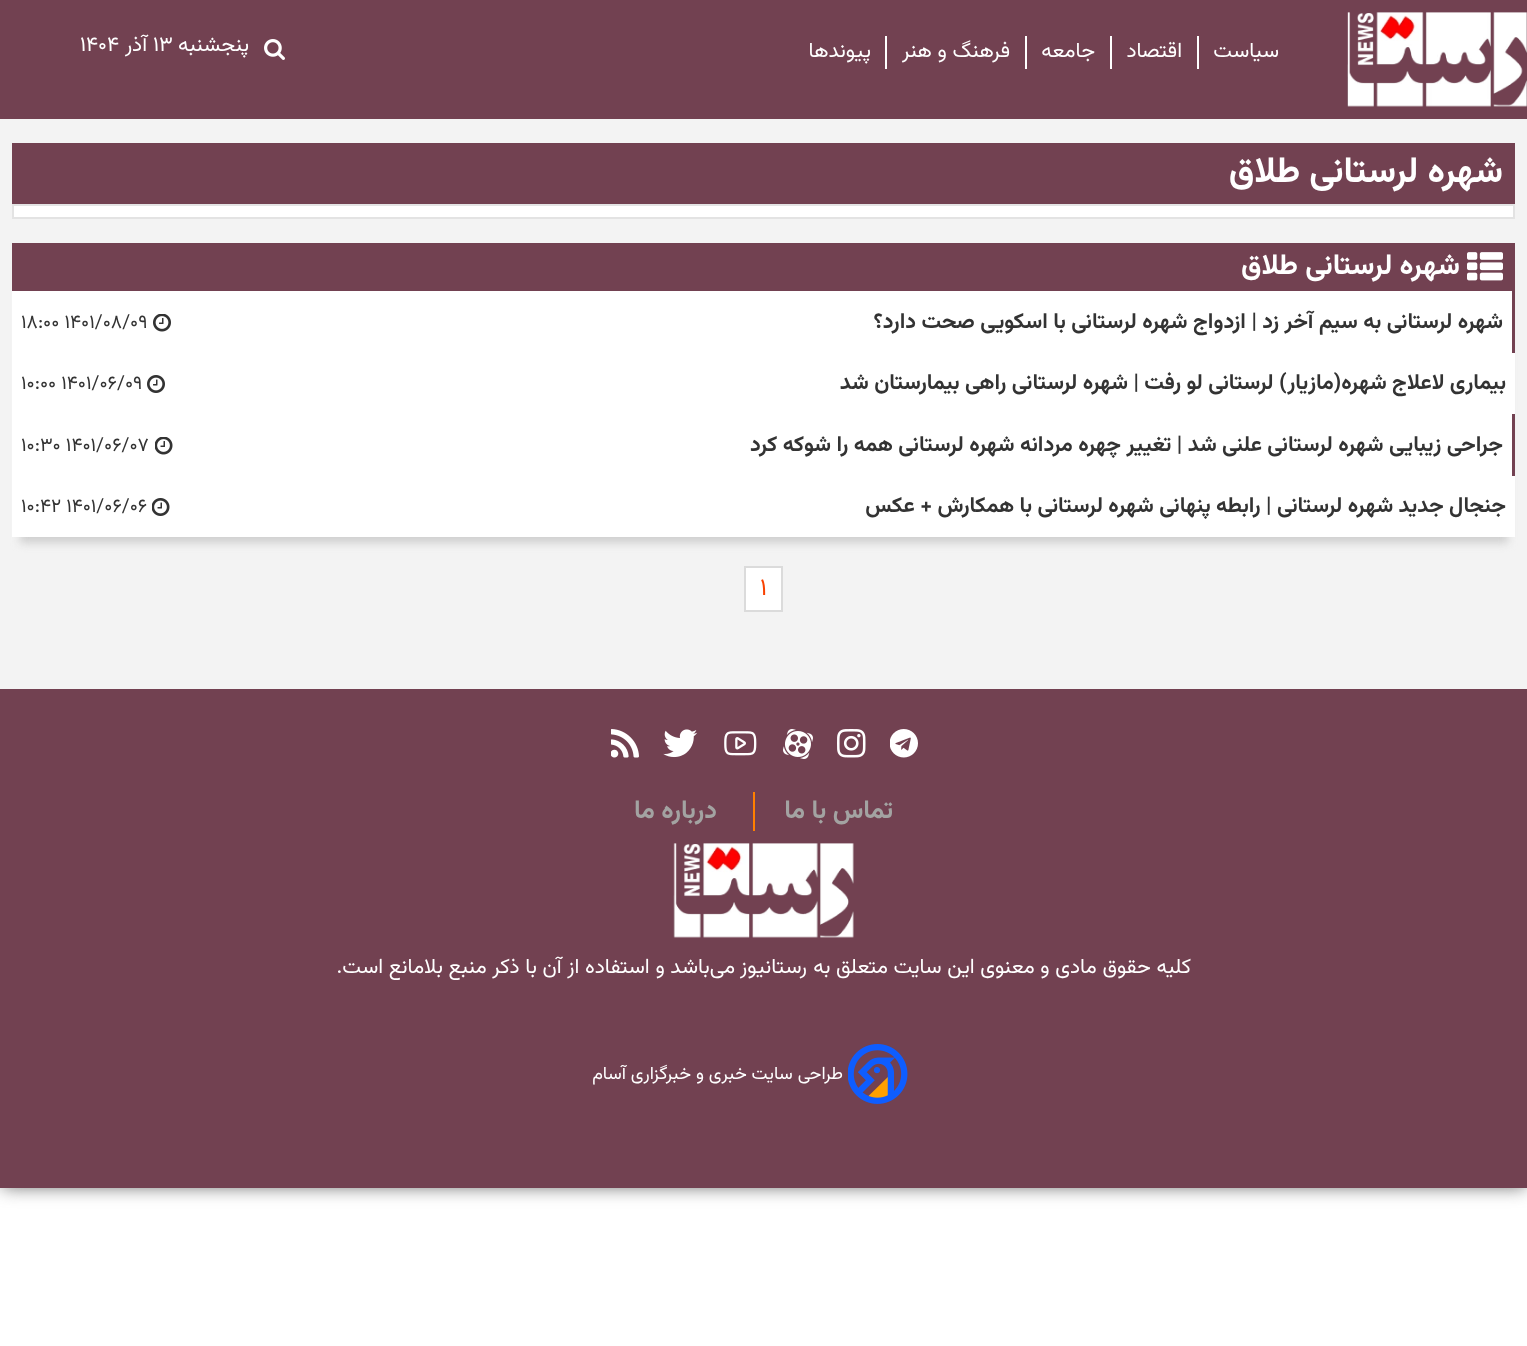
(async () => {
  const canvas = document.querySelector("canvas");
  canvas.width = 1527;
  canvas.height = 1346;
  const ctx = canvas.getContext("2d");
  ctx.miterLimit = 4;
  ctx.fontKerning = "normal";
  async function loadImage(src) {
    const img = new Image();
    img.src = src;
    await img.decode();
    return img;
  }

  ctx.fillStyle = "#ffffff";
  ctx.fillRect(0, 0, 1527, 1346);
  ctx.fillStyle = "#6b6b6b";
  ctx.filter = "blur(9px)";
  ctx.beginPath();
  ctx.rect(2, 2, 1524, 1185);
  ctx.fill();
  ctx.filter = "none";
  ctx.fillStyle = "#724151";
  ctx.fillRect(0, 0, 1527, 119);
  ctx.drawImage(await loadImage("img/1.png"), 1347, 12, 180, 95);
  for (const [x, y, w, h, color] of [
    [1197, 36, 2, 33, "#ffffff"],
    [1110, 36, 2, 33, "#ffffff"],
    [1025, 36, 2, 33, "#ffffff"],
    [885, 36, 2, 33, "#ffffff"],
  ]) {
    ctx.fillStyle = color;
    ctx.fillRect(x, y, w, h);
  }
  ctx.drawImage(await loadImage("img/2.png"), 264, 39, 21, 21);
  ctx.fillStyle = "#f3f3f3";
  ctx.fillRect(0, 119, 1527, 570);
  ctx.fillStyle = "#724151";
  ctx.fillRect(12, 143, 1503, 61);
  ctx.fillStyle = "#ffffff";
  ctx.beginPath();
  ctx.rect(13, 205, 1501, 13);
  ctx.fill();
  ctx.strokeStyle = "#e3e3e3";
  ctx.lineWidth = 2;
  ctx.stroke();
  ctx.fillStyle = "#cfcfcf";
  ctx.filter = "blur(4px)";
  ctx.beginPath();
  ctx.rect(20, 264, 1488, 279);
  ctx.fill();
  ctx.filter = "none";
  ctx.fillStyle = "#ffffff";
  ctx.fillRect(12, 291, 1503, 246);
  ctx.fillStyle = "#724151";
  ctx.fillRect(12, 243, 1503, 48);
  ctx.drawImage(await loadImage("img/3.png"), 1467, 252, 36, 29);
  ctx.fillRect(1512, 291, 3, 62);
  ctx.drawImage(await loadImage("img/4.png"), 153, 314, 18, 18);
  ctx.drawImage(await loadImage("img/5.png"), 147, 375, 18, 18);
  ctx.fillRect(1512, 414, 3, 62);
  ctx.drawImage(await loadImage("img/6.png"), 155, 437, 18, 18);
  ctx.drawImage(await loadImage("img/7.png"), 152, 498, 18, 18);
  ctx.fillStyle = "#ffffff";
  ctx.beginPath();
  ctx.rect(745, 567, 37, 44);
  ctx.fill();
  ctx.strokeStyle = "#dbdbdb";
  ctx.stroke();
  ctx.fillStyle = "#724151";
  ctx.fillRect(0, 689, 1527, 499);
  ctx.drawImage(await loadImage("img/8.png"), 890, 729, 28, 29);
  ctx.drawImage(await loadImage("img/9.png"), 837, 729, 29, 29);
  ctx.drawImage(await loadImage("img/10.png"), 783, 729, 30, 30);
  ctx.drawImage(await loadImage("img/11.png"), 724, 731, 33, 25);
  ctx.drawImage(await loadImage("img/12.png"), 663, 729, 35, 29);
  ctx.drawImage(await loadImage("img/13.png"), 611, 729, 28, 29);
  ctx.fillStyle = "#ff8000";
  ctx.fillRect(753, 792, 2, 39);
  ctx.drawImage(await loadImage("img/14.png"), 673, 843, 181, 95);
  ctx.drawImage(await loadImage("img/15.png"), 848, 1044, 60, 60);
  ctx.direction = "rtl";
  ctx.font = "21px Vazirmatn";
  ctx.fillStyle = "#ffffff";
  for (const [text, x, y] of [
    ["سیاست", 1279, 57],
    ["اقتصاد", 1182, 57],
    ["جامعه", 1095, 57],
    ["فرهنگ و هنر", 1010, 57],
    ["پیوند‌ها", 871, 57],
    ["پنجشنبه", 249, 51],
  ]) {
    ctx.fillText(text, x, y);
  }
  ctx.direction = "ltr";
  ctx.fillText("۱۳", 153, 51);
  ctx.direction = "rtl";
  ctx.fillText("آذر", 147, 51);
  ctx.direction = "ltr";
  ctx.fillText("۱۴۰۴", 80, 51);
  ctx.direction = "rtl";
  ctx.font = "bold 36px Vazirmatn";
  ctx.fillText("شهره لرستانی طلاق", 1503, 182);
  ctx.font = "bold 28.75px Vazirmatn";
  ctx.fillText("شهره لرستانی طلاق", 1460, 274);
  ctx.font = "bold 21.6px Vazirmatn";
  ctx.fillStyle = "#333333";
  ctx.fillText("شهره لرستانی به سیم آخر زد | ازدواج شهره لرستانی با اسکویی صحت دارد؟", 1503, 328);
  ctx.direction = "ltr";
  ctx.font = "19.25px Vazirmatn";
  ctx.fillText("۱۸:۰۰ ۱۴۰۱/۰۸/۰۹", 21, 328);
  ctx.direction = "rtl";
  ctx.font = "bold 21.6px Vazirmatn";
  ctx.fillText("بیماری لاعلاج شهره(مازیار) لرستانی لو رفت | شهره لرستانی راهی بیمارستان شد", 1506, 389);
  ctx.direction = "ltr";
  ctx.font = "19.25px Vazirmatn";
  ctx.fillText("۱۰:۰۰ ۱۴۰۱/۰۶/۰۹", 21, 389);
  ctx.direction = "rtl";
  ctx.font = "bold 21.6px Vazirmatn";
  ctx.fillText("جراحی زیبایی شهره لرستانی علنی شد | تغییر چهره مردانه شهره لرستانی همه را شوکه کرد", 1503, 451);
  ctx.direction = "ltr";
  ctx.font = "19.25px Vazirmatn";
  ctx.fillText("۱۰:۳۰ ۱۴۰۱/۰۶/۰۷", 21, 451);
  ctx.direction = "rtl";
  ctx.font = "bold 21.6px Vazirmatn";
  ctx.fillText("جنجال جدید شهره لرستانی | رابطه پنهانی شهره لرستانی با همکارش + عکس", 1506, 512);
  ctx.direction = "ltr";
  ctx.font = "19.25px Vazirmatn";
  ctx.fillText("۱۰:۴۲ ۱۴۰۱/۰۶/۰۶", 21, 512);
  ctx.font = "24px Vazirmatn";
  ctx.fillStyle = "#f94100";
  ctx.fillText("۱", 760, 595);
  ctx.direction = "rtl";
  ctx.font = "bold 25.5px Vazirmatn";
  ctx.fillStyle = "#a3a3a2";
  ctx.fillText("تماس با ما", 893, 818);
  ctx.fillText("درباره ما", 717, 818);
  ctx.font = "21px Vazirmatn";
  ctx.fillStyle = "#ffffff";
  for (const [text, x, y] of [
    ["کلیه حقوق مادی و معنوی این سایت متعلق به", 1191, 973],
    ["رستانیوز", 807, 973],
    ["می‌باشد و استفاده از آن با ذکر منبع بلامانع است.", 735, 973],
  ]) {
    ctx.fillText(text, x, y);
  }
  ctx.font = "18px Vazirmatn";
  ctx.fillText("طراحی سایت خبری و خبرگزاری آسام", 843, 1079);
})();
